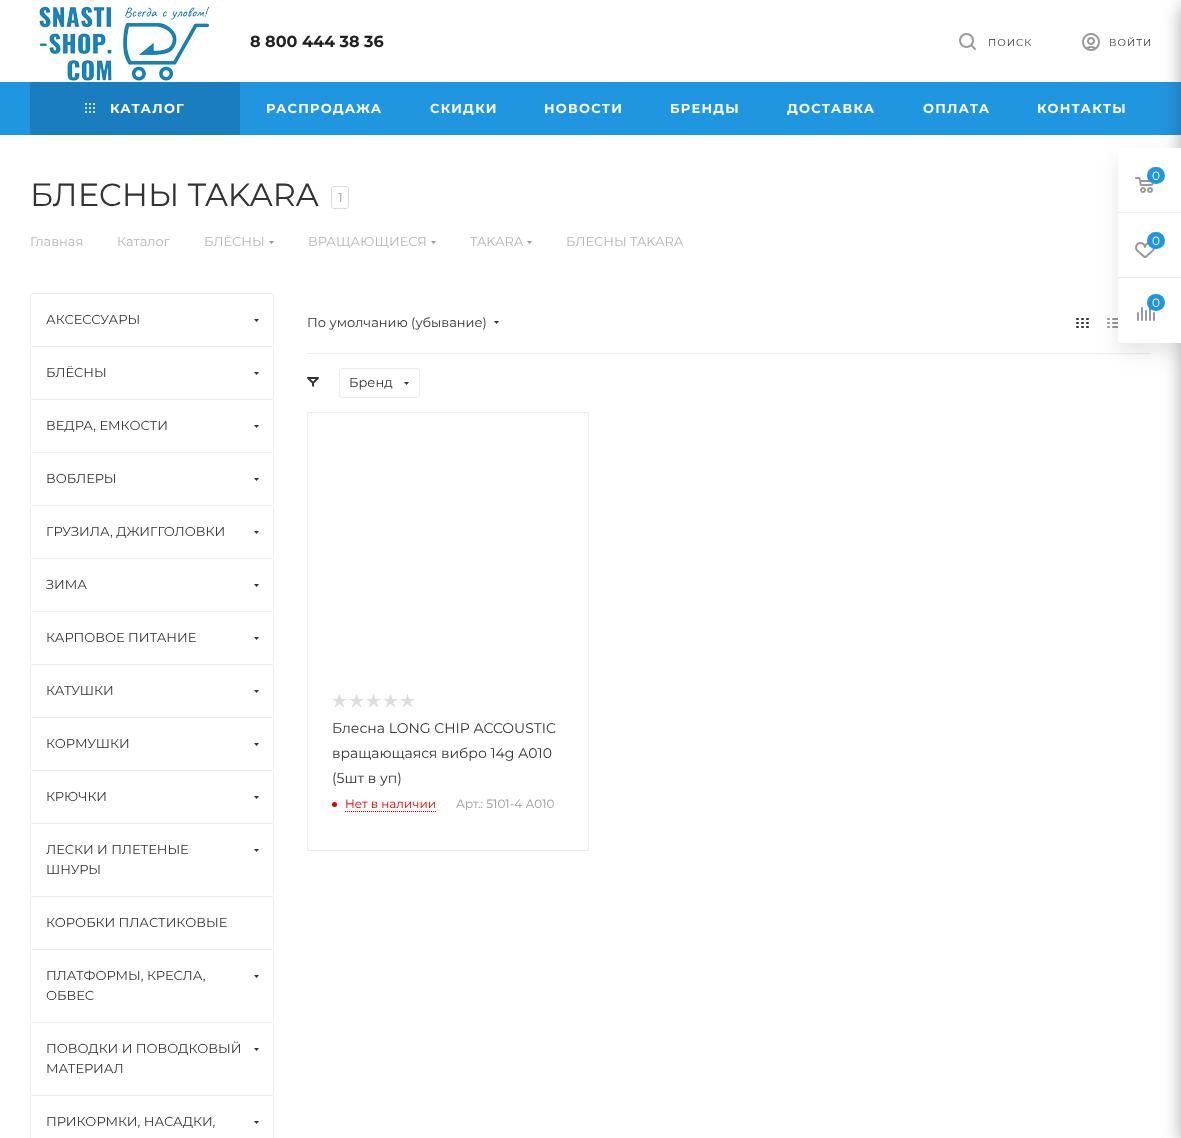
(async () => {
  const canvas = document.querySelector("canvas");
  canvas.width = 1181;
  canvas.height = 1138;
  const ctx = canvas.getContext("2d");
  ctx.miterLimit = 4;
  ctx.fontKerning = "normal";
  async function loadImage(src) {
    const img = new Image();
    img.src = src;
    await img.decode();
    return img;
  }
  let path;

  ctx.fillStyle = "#ffffff";
  ctx.fillRect(0, 0, 1181, 1138);
  ctx.fillStyle = "#2196e0";
  ctx.fillRect(0, 82, 1181, 53);
  ctx.fillStyle = "#1a7ebe";
  ctx.beginPath();
  ctx.roundRect(30, 82, 210, 53, [3, 0, 0, 3]);
  ctx.fill();
  ctx.drawImage(await loadImage("img/1.png"), 35, 6, 179, 77);
  ctx.drawImage(await loadImage("img/2.png"), 959, 33, 17, 17);
  ctx.drawImage(await loadImage("img/3.png"), 1082, 33, 18, 18);
  ctx.drawImage(await loadImage("img/4.png"), 85, 103, 10, 10);
  ctx.beginPath();
  ctx.roundRect(331.5, 186.5, 17, 22, 2.5);
  ctx.strokeStyle = "#dbdbdb";
  ctx.stroke();
  ctx.fillStyle = "#999999";
  path = new Path2D("M269 241H274L271.5 244Z");
  ctx.fill(path, "evenodd");
  path = new Path2D("M431 241H436L433.5 244Z");
  ctx.fill(path, "evenodd");
  path = new Path2D("M527 241H532L529.5 244Z");
  ctx.fill(path, "evenodd");
  ctx.save();
  ctx.beginPath();
  ctx.roundRect(30, 293, 244, 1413, 3);
  ctx.clip();
  ctx.fillStyle = "#ececec";
  ctx.fillRect(31, 293, 242, 1);
  ctx.restore();
  ctx.fillStyle = "#ececec";
  ctx.fillRect(273, 294, 1, 51);
  ctx.fillRect(30, 294, 1, 51);
  ctx.fillStyle = "#333333";
  path = new Path2D("M254 319H259L256.5 322Z");
  ctx.fill(path, "evenodd");
  for (const [x, y, w, h, color] of [
    [31, 346, 242, 1, "#ececec"],
    [273, 347, 1, 51, "#ececec"],
    [30, 347, 1, 51, "#ececec"],
  ]) {
    ctx.fillStyle = color;
    ctx.fillRect(x, y, w, h);
  }
  ctx.fillStyle = "#333333";
  path = new Path2D("M254 372H259L256.5 375Z");
  ctx.fill(path, "evenodd");
  for (const [x, y, w, h, color] of [
    [31, 399, 242, 1, "#ececec"],
    [273, 400, 1, 51, "#ececec"],
    [30, 400, 1, 51, "#ececec"],
  ]) {
    ctx.fillStyle = color;
    ctx.fillRect(x, y, w, h);
  }
  ctx.fillStyle = "#333333";
  path = new Path2D("M254 425H259L256.5 428Z");
  ctx.fill(path, "evenodd");
  for (const [x, y, w, h, color] of [
    [31, 452, 242, 1, "#ececec"],
    [273, 453, 1, 51, "#ececec"],
    [30, 453, 1, 51, "#ececec"],
  ]) {
    ctx.fillStyle = color;
    ctx.fillRect(x, y, w, h);
  }
  ctx.fillStyle = "#333333";
  path = new Path2D("M254 478H259L256.5 481Z");
  ctx.fill(path, "evenodd");
  for (const [x, y, w, h, color] of [
    [31, 505, 242, 1, "#ececec"],
    [273, 506, 1, 51, "#ececec"],
    [30, 506, 1, 51, "#ececec"],
  ]) {
    ctx.fillStyle = color;
    ctx.fillRect(x, y, w, h);
  }
  ctx.fillStyle = "#333333";
  path = new Path2D("M254 531H259L256.5 534Z");
  ctx.fill(path, "evenodd");
  for (const [x, y, w, h, color] of [
    [31, 558, 242, 1, "#ececec"],
    [273, 559, 1, 51, "#ececec"],
    [30, 559, 1, 51, "#ececec"],
  ]) {
    ctx.fillStyle = color;
    ctx.fillRect(x, y, w, h);
  }
  ctx.fillStyle = "#333333";
  path = new Path2D("M254 584H259L256.5 587Z");
  ctx.fill(path, "evenodd");
  for (const [x, y, w, h, color] of [
    [31, 611, 242, 1, "#ececec"],
    [273, 612, 1, 51, "#ececec"],
    [30, 612, 1, 51, "#ececec"],
  ]) {
    ctx.fillStyle = color;
    ctx.fillRect(x, y, w, h);
  }
  ctx.fillStyle = "#333333";
  path = new Path2D("M254 637H259L256.5 640Z");
  ctx.fill(path, "evenodd");
  for (const [x, y, w, h, color] of [
    [31, 664, 242, 1, "#ececec"],
    [273, 665, 1, 51, "#ececec"],
    [30, 665, 1, 51, "#ececec"],
  ]) {
    ctx.fillStyle = color;
    ctx.fillRect(x, y, w, h);
  }
  ctx.fillStyle = "#333333";
  path = new Path2D("M254 690H259L256.5 693Z");
  ctx.fill(path, "evenodd");
  for (const [x, y, w, h, color] of [
    [31, 717, 242, 1, "#ececec"],
    [273, 718, 1, 51, "#ececec"],
    [30, 718, 1, 51, "#ececec"],
  ]) {
    ctx.fillStyle = color;
    ctx.fillRect(x, y, w, h);
  }
  ctx.fillStyle = "#333333";
  path = new Path2D("M254 743H259L256.5 746Z");
  ctx.fill(path, "evenodd");
  for (const [x, y, w, h, color] of [
    [31, 770, 242, 1, "#ececec"],
    [273, 771, 1, 51, "#ececec"],
    [30, 771, 1, 51, "#ececec"],
  ]) {
    ctx.fillStyle = color;
    ctx.fillRect(x, y, w, h);
  }
  ctx.fillStyle = "#333333";
  path = new Path2D("M254 796H259L256.5 799Z");
  ctx.fill(path, "evenodd");
  for (const [x, y, w, h, color] of [
    [31, 823, 242, 1, "#ececec"],
    [273, 824, 1, 71, "#ececec"],
    [30, 824, 1, 71, "#ececec"],
  ]) {
    ctx.fillStyle = color;
    ctx.fillRect(x, y, w, h);
  }
  ctx.fillStyle = "#333333";
  path = new Path2D("M254 849H259L256.5 852Z");
  ctx.fill(path, "evenodd");
  for (const [x, y, w, h, color] of [
    [31, 896, 242, 1, "#ececec"],
    [273, 897, 1, 51, "#ececec"],
    [30, 897, 1, 51, "#ececec"],
    [31, 949, 242, 1, "#ececec"],
    [273, 950, 1, 71, "#ececec"],
    [30, 950, 1, 71, "#ececec"],
  ]) {
    ctx.fillStyle = color;
    ctx.fillRect(x, y, w, h);
  }
  ctx.fillStyle = "#333333";
  path = new Path2D("M254 975H259L256.5 978Z");
  ctx.fill(path, "evenodd");
  for (const [x, y, w, h, color] of [
    [31, 1022, 242, 1, "#ececec"],
    [273, 1023, 1, 71, "#ececec"],
    [30, 1023, 1, 71, "#ececec"],
  ]) {
    ctx.fillStyle = color;
    ctx.fillRect(x, y, w, h);
  }
  ctx.fillStyle = "#333333";
  path = new Path2D("M254 1048H259L256.5 1051Z");
  ctx.fill(path, "evenodd");
  for (const [x, y, w, h, color] of [
    [31, 1095, 242, 1, "#ececec"],
    [273, 1096, 1, 42, "#ececec"],
    [30, 1096, 1, 42, "#ececec"],
  ]) {
    ctx.fillStyle = color;
    ctx.fillRect(x, y, w, h);
  }
  ctx.fillStyle = "#333333";
  path = new Path2D("M254 1121H259L256.5 1124Z");
  ctx.fill(path, "evenodd");
  ctx.fillStyle = "#ececec";
  ctx.fillRect(307, 353, 844, 1);
  ctx.fillStyle = "#333333";
  path = new Path2D("M494 321H499L496.5 324Z");
  ctx.fill(path, "evenodd");
  ctx.drawImage(await loadImage("img/5.png"), 1076, 318, 13, 10);
  ctx.drawImage(await loadImage("img/6.png"), 1107, 318, 11, 10);
  ctx.drawImage(await loadImage("img/7.png"), 307, 377, 12, 10);
  ctx.beginPath();
  ctx.roundRect(339.5, 368.5, 80, 29, 2.5);
  ctx.strokeStyle = "#ececec";
  ctx.stroke();
  path = new Path2D("M404 382H409L406.5 385Z");
  ctx.fill(path, "evenodd");
  ctx.strokeRect(307.5, 412.5, 281, 438);
  ctx.drawImage(await loadImage("img/8.png"), 332, 694, 15, 13);
  ctx.drawImage(await loadImage("img/8.png"), 349, 694, 15, 13);
  ctx.drawImage(await loadImage("img/8.png"), 366, 694, 15, 13);
  ctx.drawImage(await loadImage("img/8.png"), 383, 694, 15, 13);
  ctx.drawImage(await loadImage("img/8.png"), 400, 694, 15, 13);
  ctx.fillStyle = "#e10000";
  ctx.beginPath();
  ctx.arc(334.5, 804.5, 2.5, 0, Math.PI * 2);
  ctx.fill();
  path = new Path2D("M345 811.5H436");
  ctx.strokeStyle = "#e10000";
  ctx.setLineDash([1, 1]);
  ctx.stroke(path);
  ctx.fillStyle = "rgba(44, 44, 44, 0.4)";
  ctx.filter = "blur(9px)";
  ctx.beginPath();
  ctx.roundRect(1181, 6, 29, 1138, 2);
  ctx.fill();
  ctx.filter = "none";
  ctx.fillStyle = "rgba(0, 0, 0, 0.1)";
  ctx.filter = "blur(10px)";
  ctx.beginPath();
  ctx.roundRect(1118, 158, 63, 195, 4);
  ctx.fill();
  ctx.filter = "none";
  ctx.fillStyle = "#ffffff";
  ctx.beginPath();
  ctx.roundRect(1118, 148, 63, 195, [4, 0, 0, 4]);
  ctx.fill();
  ctx.fillStyle = "#ececec";
  ctx.fillRect(1118, 212, 63, 1);
  ctx.drawImage(await loadImage("img/9.png"), 1135, 177, 19, 16);
  ctx.fillStyle = "#2196e0";
  ctx.beginPath();
  ctx.roundRect(1147, 167, 18, 17, 8.5);
  ctx.fill();
  ctx.fillStyle = "#ececec";
  ctx.fillRect(1118, 277, 63, 1);
  ctx.drawImage(await loadImage("img/10.png"), 1135, 242, 20, 16);
  ctx.fillStyle = "#2196e0";
  ctx.beginPath();
  ctx.roundRect(1147, 232, 18, 17, 8.5);
  ctx.fill();
  ctx.drawImage(await loadImage("img/11.png"), 1137, 307, 18, 14);
  ctx.beginPath();
  ctx.roundRect(1147, 294, 18, 17, 8.5);
  ctx.fill();
  ctx.font = "bold 16px Montserrat";
  ctx.fillStyle = "#222222";
  ctx.fillText("8 800 444 38 36", 250, 47);
  ctx.letterSpacing = "1px";
  ctx.font = "10px Montserrat";
  ctx.fillStyle = "#333333";
  ctx.fillText("ПОИСК", 988, 46);
  ctx.fillText("ВОЙТИ", 1109, 46);
  ctx.letterSpacing = "1.25px";
  ctx.font = "bold 13px Montserrat";
  ctx.fillStyle = "#ffffff";
  for (const [text, x, y] of [
    ["КАТАЛОГ", 110, 113],
    ["РАСПРОДАЖА", 266, 113],
    ["СКИДКИ", 430, 113],
    ["НОВОСТИ", 544, 113],
    ["БРЕНДЫ", 670, 113],
    ["ДОСТАВКА", 787, 113],
    ["ОПЛАТА", 923, 113],
    ["КОНТАКТЫ", 1037, 113],
  ]) {
    ctx.fillText(text, x, y);
  }
  ctx.letterSpacing = "0px";
  ctx.font = "32px Montserrat";
  ctx.fillStyle = "#333333";
  ctx.fillText("БЛЕСНЫ TAKARA", 30, 206);
  ctx.font = "13px Montserrat";
  ctx.fillStyle = "#999999";
  ctx.fillText("1", 338, 202);
  ctx.fillStyle = "#b6b5b5";
  for (const [text, x, y] of [
    ["Главная", 30, 246],
    ["Каталог", 117, 246],
    ["БЛЁСНЫ", 204, 246],
    ["ВРАЩАЮЩИЕСЯ", 308, 246],
    ["TAKARA", 470, 246],
    ["БЛЕСНЫ TAKARA", 566, 246],
  ]) {
    ctx.fillText(text, x, y);
  }
  ctx.fillStyle = "#333333";
  for (const [text, x, y] of [
    ["АКСЕССУАРЫ", 46, 324],
    ["БЛЁСНЫ", 46, 377],
    ["ВЕДРА, ЕМКОСТИ", 46, 430],
    ["ВОБЛЕРЫ", 46, 483],
    ["ГРУЗИЛА, ДЖИГГОЛОВКИ", 46, 536],
    ["ЗИМА", 46, 589],
    ["КАРПОВОЕ ПИТАНИЕ", 46, 642],
    ["КАТУШКИ", 46, 695],
    ["КОРМУШКИ", 46, 748],
    ["КРЮЧКИ", 46, 801],
    ["ЛЕСКИ И ПЛЕТЕНЫЕ", 46, 854],
    ["ШНУРЫ", 46, 874],
    ["КОРОБКИ ПЛАСТИКОВЫЕ", 46, 927],
    ["ПЛАТФОРМЫ, КРЕСЛА,", 46, 980],
    ["ОБВЕС", 46, 1000],
    ["ПОВОДКИ И ПОВОДКОВЫЙ", 46, 1053],
    ["МАТЕРИАЛ", 46, 1073],
    ["ПРИКОРМКИ, НАСАДКИ,", 46, 1126],
    ["По умолчанию (убывание)", 307, 327],
    ["Бренд", 349, 387],
  ]) {
    ctx.fillText(text, x, y);
  }
  ctx.font = "14px Montserrat";
  for (const [text, x, y] of [
    ["Блесна LONG CHIP ACCOUSTIC", 332, 733],
    ["вращающаяся вибро 14g А010", 332, 758],
    ["(5шт в уп)", 332, 783],
  ]) {
    ctx.fillText(text, x, y);
  }
  ctx.font = "12px Montserrat";
  ctx.fillStyle = "#e10000";
  ctx.fillText("Нет в наличии", 345, 808);
  ctx.fillStyle = "#999999";
  ctx.fillText("Арт.: 5101-4 А010", 456, 808);
  ctx.fillStyle = "#ffffff";
  for (const [text, x, y] of [
    ["0", 1152, 180],
    ["0", 1152, 245],
    ["0", 1152, 307],
  ]) {
    ctx.fillText(text, x, y);
  }
})();
